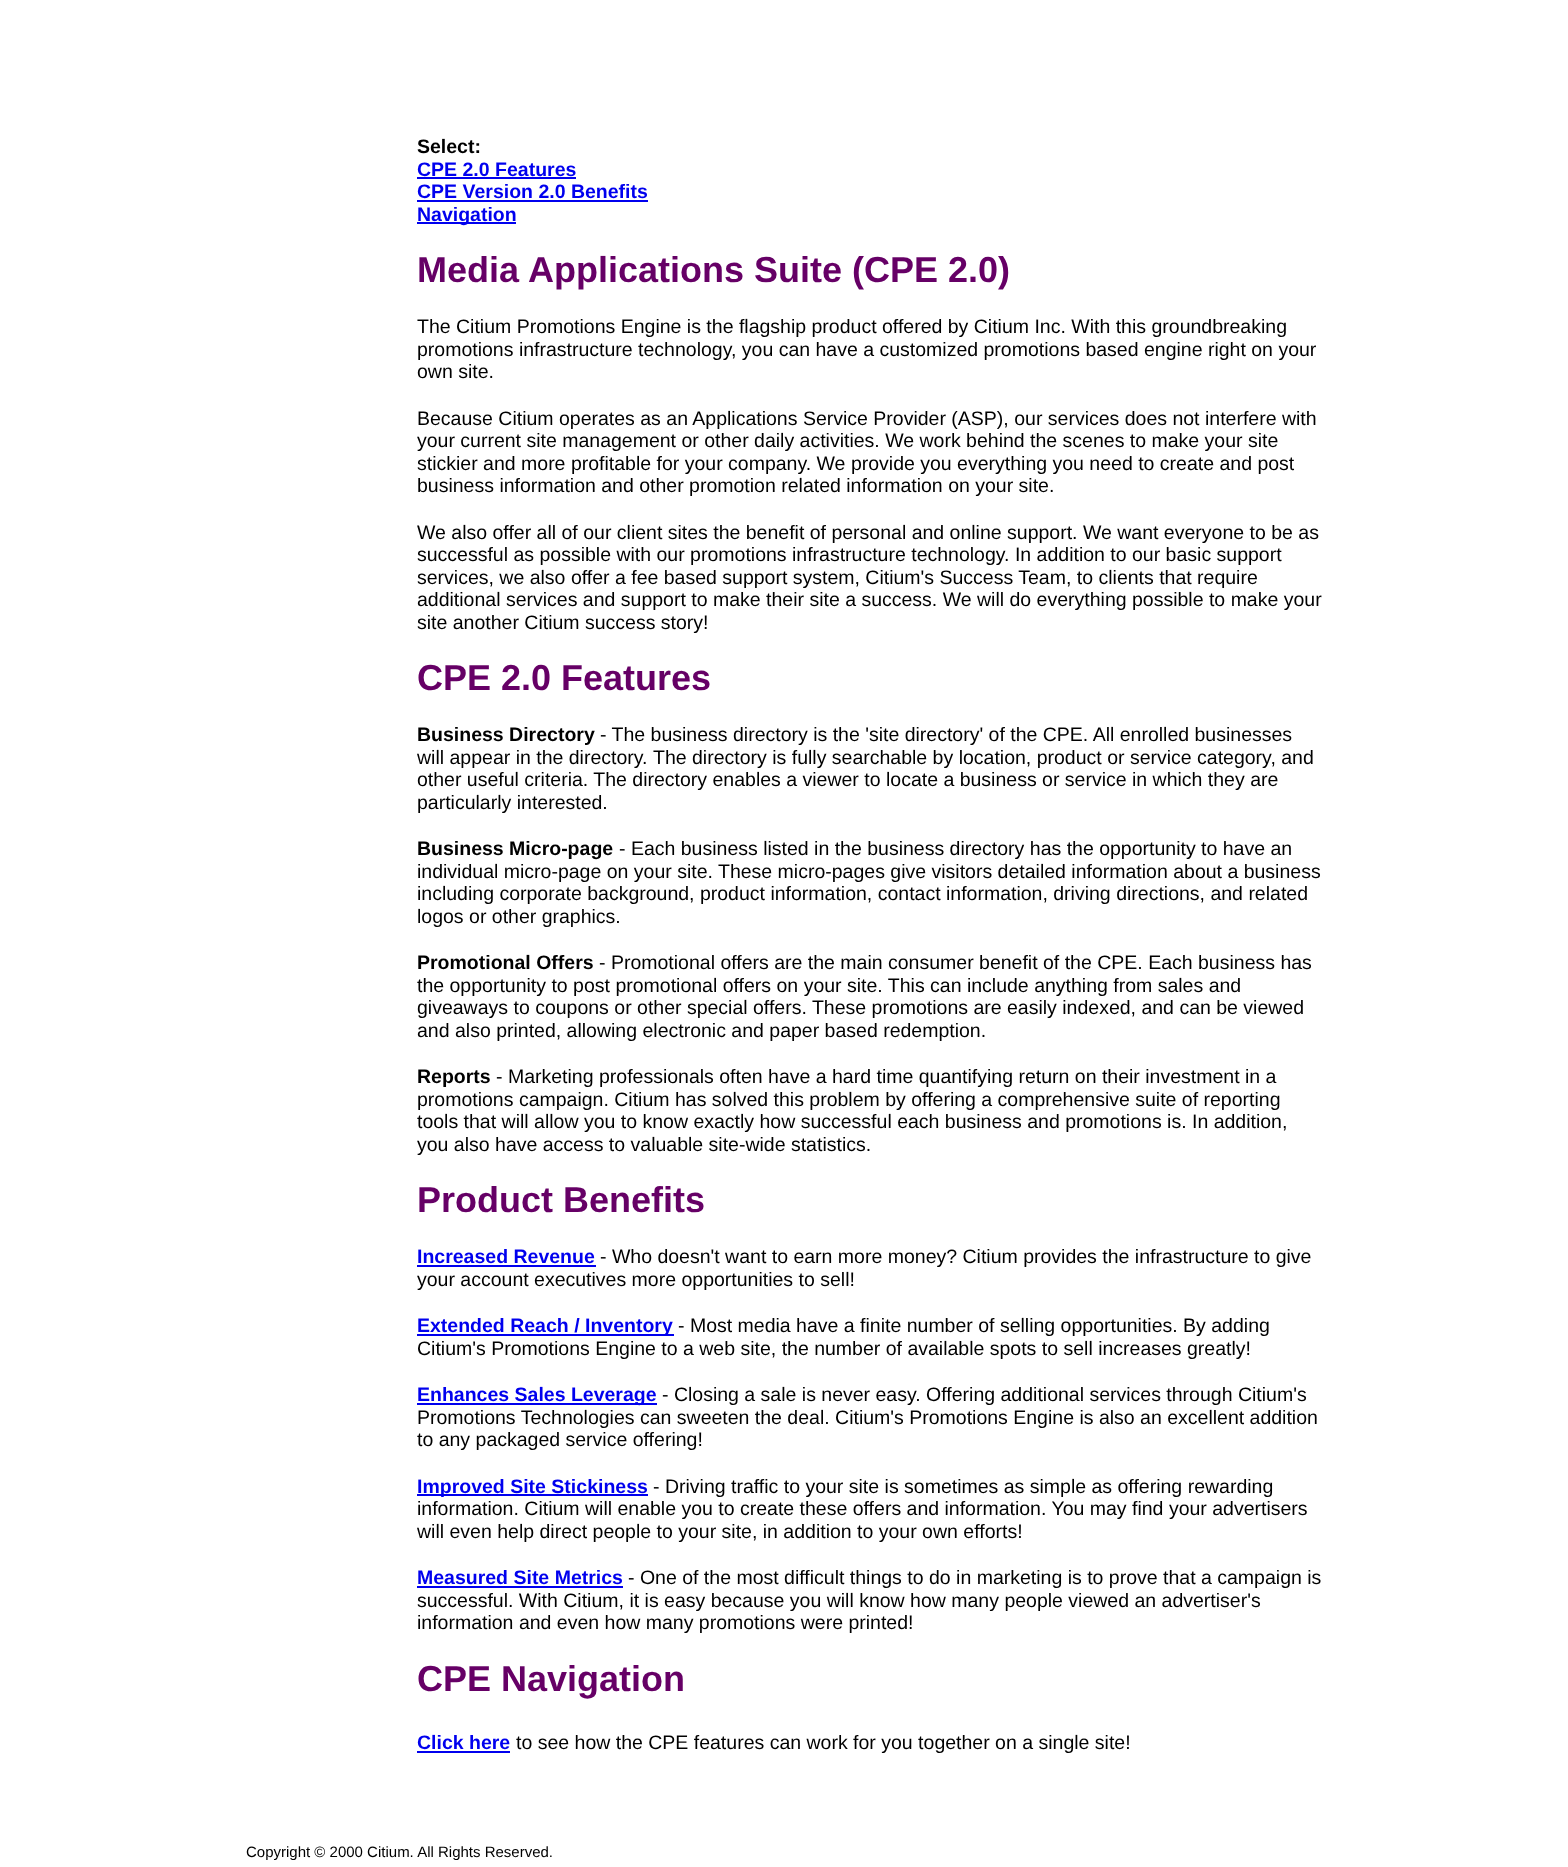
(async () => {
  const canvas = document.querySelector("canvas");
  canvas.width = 1568;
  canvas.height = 1867;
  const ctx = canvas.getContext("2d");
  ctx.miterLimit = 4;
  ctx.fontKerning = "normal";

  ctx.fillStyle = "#ffffff";
  ctx.fillRect(0, 0, 1568, 1867);
  for (const [x, y, w, h, color] of [
    [417, 177, 159, 2, "#0000ee"],
    [417, 200, 231, 2, "#0000ee"],
    [417, 222, 99, 2, "#0000ee"],
    [417, 1265, 179, 2, "#0000ee"],
    [417, 1334, 257, 2, "#0000ee"],
    [417, 1403, 240, 2, "#0000ee"],
    [417, 1494, 231, 2, "#0000ee"],
    [417, 1586, 206, 2, "#0000ee"],
    [417, 1751, 93, 2, "#0000ee"],
  ]) {
    ctx.fillStyle = color;
    ctx.fillRect(x, y, w, h);
  }
  ctx.font = "bold 19.5px Liberation Sans";
  ctx.fillStyle = "#000000";
  ctx.fillText("Select:", 417, 153);
  ctx.fillStyle = "#0000ee";
  for (const [text, x, y] of [
    ["CPE 2.0 Features", 417, 176],
    ["CPE Version 2.0 Benefits", 417, 198],
    ["Navigation", 417, 221],
  ]) {
    ctx.fillText(text, x, y);
  }
  ctx.font = "bold 36px Liberation Sans";
  ctx.fillStyle = "#660066";
  ctx.fillText("Media", 417, 282);
  ctx.fillText("Applications Suite (CPE 2.0)", 528, 282);
  ctx.font = "19.5px Liberation Sans";
  ctx.fillStyle = "#000000";
  for (const [text, x, y] of [
    ["The Citium Promotions Engine is the flagship product offered by Citium Inc. With this groundbreaking", 417, 333],
    ["promotions infrastructure technology, you can have a customized promotions based engine right on your", 417, 356],
    ["own site.", 417, 378],
    ["Because Citium operates as an Applications Service Provider (ASP), our services does not interfere with", 417, 425],
    ["your current site management or other daily activities. We work behind the scenes to make your site", 417, 447],
    ["stickier and more profitable for your company. We provide you everything you need to create and post", 417, 470],
    ["business information and other promotion related information on your site.", 417, 492],
    ["We also offer all of our client sites the benefit of personal and online support. We want everyone to be as", 417, 539],
    ["successful as possible with our promotions infrastructure technology. In addition to our basic support", 417, 561],
    ["services, we also offer a fee based support system, Citium's Success Team, to clients that require", 417, 584],
    ["additional services and support to make their site a success. We will do everything possible to make your", 417, 606],
    ["site another Citium success story!", 417, 629],
  ]) {
    ctx.fillText(text, x, y);
  }
  ctx.font = "bold 36px Liberation Sans";
  ctx.fillStyle = "#660066";
  ctx.fillText("CPE 2.0 Features", 417, 690);
  ctx.font = "bold 19.5px Liberation Sans";
  ctx.fillStyle = "#000000";
  ctx.fillText("Business Directory", 417, 741);
  ctx.font = "19.5px Liberation Sans";
  for (const [text, x, y] of [
    ["- The business directory is the 'site directory' of the CPE. All enrolled businesses", 600, 741],
    ["will appear in the directory.", 417, 764],
    ["The directory is fully searchable by location, product or service category, and", 653, 764],
    ["other useful criteria. The directory enables a viewer to locate a business or service in which they are", 417, 786],
    ["particularly interested.", 417, 809],
  ]) {
    ctx.fillText(text, x, y);
  }
  ctx.font = "bold 19.5px Liberation Sans";
  ctx.fillText("Business Micro-page", 417, 855);
  ctx.font = "19.5px Liberation Sans";
  for (const [text, x, y] of [
    ["- Each business listed in the business directory has the opportunity to have an", 619, 855],
    ["individual micro-page on your site.", 417, 878],
    ["These micro-pages give visitors detailed information about a business", 718, 878],
    ["including corporate background, product information, contact information, driving directions, and related", 417, 900],
    ["logos or other graphics.", 417, 923],
  ]) {
    ctx.fillText(text, x, y);
  }
  ctx.font = "bold 19.5px Liberation Sans";
  ctx.fillText("Promotional Offers", 417, 969);
  ctx.font = "19.5px Liberation Sans";
  for (const [text, x, y] of [
    ["- Promotional offers are the main consumer benefit of the CPE. Each business has", 599, 969],
    ["the opportunity to post promotional offers on your site. This can include anything from sales and", 417, 992],
    ["giveaways to coupons or other special offers. These promotions are easily indexed, and can be viewed", 417, 1014],
    ["and also printed, allowing electronic and paper based redemption.", 417, 1037],
  ]) {
    ctx.fillText(text, x, y);
  }
  ctx.font = "bold 19.5px Liberation Sans";
  ctx.fillText("Reports", 417, 1083);
  ctx.font = "19.5px Liberation Sans";
  for (const [text, x, y] of [
    ["- Marketing professionals often have a hard time quantifying return on their investment in a", 496, 1083],
    ["promotions campaign. Citium has solved this problem by offering a comprehensive suite of reporting", 417, 1106],
    ["tools that will allow you to know exactly how successful each business and promotions is. In addition,", 417, 1128],
    ["you also have access to valuable site-wide statistics.", 417, 1151],
  ]) {
    ctx.fillText(text, x, y);
  }
  ctx.font = "bold 36px Liberation Sans";
  ctx.fillStyle = "#660066";
  ctx.fillText("Product Benefits", 417, 1212);
  ctx.font = "bold 19.5px Liberation Sans";
  ctx.fillStyle = "#0000ee";
  ctx.fillText("Increased Revenue", 417, 1263);
  ctx.font = "19.5px Liberation Sans";
  ctx.fillStyle = "#000000";
  ctx.fillText("- Who doesn't want to earn more money? Citium provides the infrastructure to give", 600, 1263);
  ctx.fillText("your account executives more opportunities to sell!", 417, 1286);
  ctx.font = "bold 19.5px Liberation Sans";
  ctx.fillStyle = "#0000ee";
  ctx.fillText("Extended Reach / Inventory", 417, 1332);
  ctx.font = "19.5px Liberation Sans";
  ctx.fillStyle = "#000000";
  ctx.fillText("- Most media have a finite number of selling opportunities. By adding", 678, 1332);
  ctx.fillText("Citium's Promotions Engine to a web site, the number of available spots to sell increases greatly!", 417, 1355);
  ctx.font = "bold 19.5px Liberation Sans";
  ctx.fillStyle = "#0000ee";
  ctx.fillText("Enhances Sales Leverage", 417, 1401);
  ctx.font = "19.5px Liberation Sans";
  ctx.fillStyle = "#000000";
  for (const [text, x, y] of [
    ["- Closing a sale is never easy. Offering additional services through Citium's", 662, 1401],
    ["Promotions Technologies can sweeten the deal. Citium's Promotions Engine is also an excellent addition", 417, 1424],
    ["to any packaged service offering!", 417, 1446],
  ]) {
    ctx.fillText(text, x, y);
  }
  ctx.font = "bold 19.5px Liberation Sans";
  ctx.fillStyle = "#0000ee";
  ctx.fillText("Improved Site Stickiness", 417, 1493);
  ctx.font = "19.5px Liberation Sans";
  ctx.fillStyle = "#000000";
  for (const [text, x, y] of [
    ["- Driving traffic to your site is sometimes as simple as offering rewarding", 653, 1493],
    ["information. Citium will enable you to create these offers and information. You may find your advertisers", 417, 1515],
    ["will even help direct people to your site, in addition to your own efforts!", 417, 1538],
  ]) {
    ctx.fillText(text, x, y);
  }
  ctx.font = "bold 19.5px Liberation Sans";
  ctx.fillStyle = "#0000ee";
  ctx.fillText("Measured Site Metrics", 417, 1584);
  ctx.font = "19.5px Liberation Sans";
  ctx.fillStyle = "#000000";
  for (const [text, x, y] of [
    ["- One of the most difficult things to do in marketing is to prove that a campaign is", 628, 1584],
    ["successful. With Citium, it is easy because you will know how many people viewed an advertiser's", 417, 1607],
    ["information and even how many promotions were printed!", 417, 1629],
  ]) {
    ctx.fillText(text, x, y);
  }
  ctx.font = "bold 36px Liberation Sans";
  ctx.fillStyle = "#660066";
  ctx.fillText("CPE Navigation", 417, 1691);
  ctx.font = "bold 19.5px Liberation Sans";
  ctx.fillStyle = "#0000ee";
  ctx.fillText("Click here", 417, 1749);
  ctx.font = "19.5px Liberation Sans";
  ctx.fillStyle = "#000000";
  ctx.fillText("to see how the CPE features can work for you together on a single site!", 516, 1749);
  ctx.font = "15px Liberation Sans";
  ctx.fillText("Copyright © 2000 Citium. All Rights Reserved.", 246, 1857);
})();
